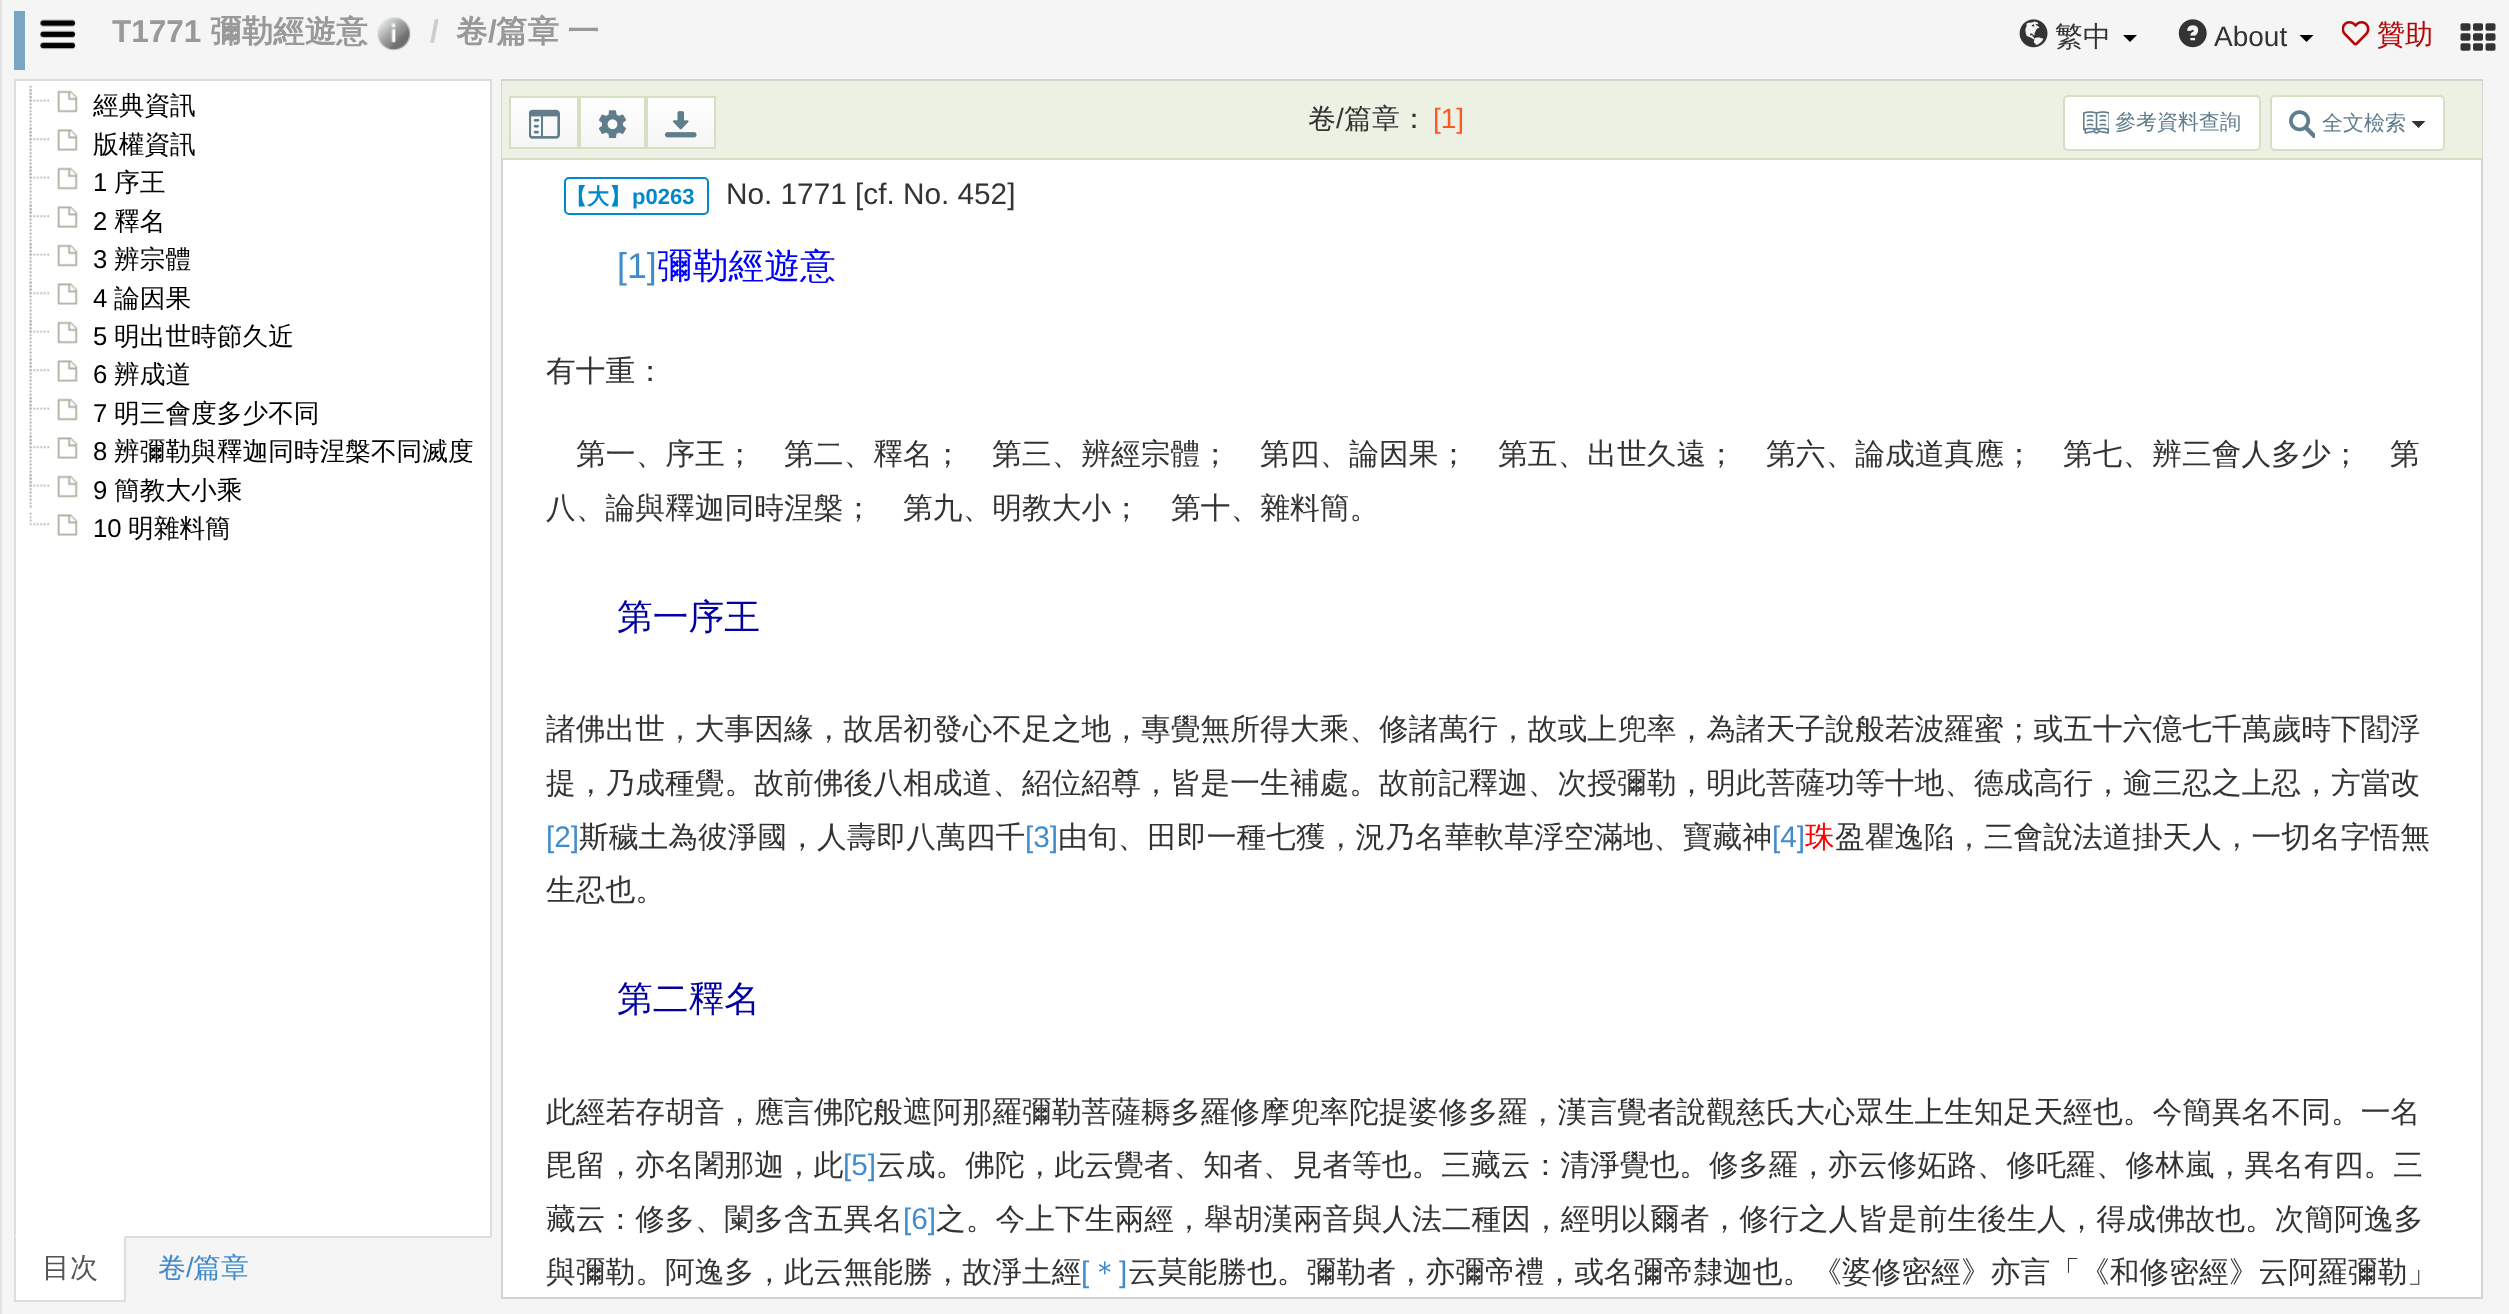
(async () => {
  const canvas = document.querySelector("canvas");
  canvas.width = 2509;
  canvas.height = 1314;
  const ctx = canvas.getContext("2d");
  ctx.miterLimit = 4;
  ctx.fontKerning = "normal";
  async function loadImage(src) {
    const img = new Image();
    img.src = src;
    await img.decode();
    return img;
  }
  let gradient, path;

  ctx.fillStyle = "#f5f5f5";
  ctx.fillRect(0, 0, 2509, 1314);
  ctx.fillStyle = "#e3e3e3";
  ctx.fillRect(0, 0, 2, 1314);
  ctx.fillStyle = "#79a6c2";
  ctx.fillRect(14, 11, 11, 59);
  ctx.drawImage(await loadImage("img/1.png"), 40, 19, 36, 31);
  ctx.drawImage(await loadImage("img/2.png"), 377, 17, 34, 34);
  ctx.drawImage(await loadImage("img/3.png"), 2019, 19, 29, 29);
  ctx.fillStyle = "#000000";
  path = new Path2D("M2123 35H2137L2130 42Z");
  ctx.fill(path);
  ctx.drawImage(await loadImage("img/4.png"), 2178, 19, 29, 29);
  path = new Path2D("M2299.5 35H2313.5L2306.5 42Z");
  ctx.fill(path);
  ctx.drawImage(await loadImage("img/5.png"), 2342, 21, 28, 25);
  ctx.drawImage(await loadImage("img/6.png"), 2460, 23, 36, 28);
  for (const [x, y, w, h, color] of [
    [16, 81, 474, 1155, "#ffffff"],
    [14, 79, 478, 2, "#dddddd"],
    [490, 79, 2, 1157, "#dddddd"],
    [14, 79, 2, 1157, "#dddddd"],
  ]) {
    ctx.fillStyle = color;
    ctx.fillRect(x, y, w, h);
  }
  ctx.drawImage(await loadImage("img/7.png"), 29, 85, 3, 40);
  ctx.drawImage(await loadImage("img/8.png"), 29, 88, 20, 14);
  ctx.drawImage(await loadImage("img/9.png"), 57, 90, 21, 23);
  ctx.drawImage(await loadImage("img/10.png"), 29, 124, 3, 39);
  ctx.drawImage(await loadImage("img/11.png"), 29, 127, 20, 14);
  ctx.drawImage(await loadImage("img/12.png"), 57, 129, 21, 22);
  ctx.drawImage(await loadImage("img/13.png"), 29, 162, 3, 40);
  ctx.drawImage(await loadImage("img/8.png"), 29, 165, 20, 14);
  ctx.drawImage(await loadImage("img/9.png"), 57, 167, 21, 23);
  ctx.drawImage(await loadImage("img/10.png"), 29, 201, 3, 39);
  ctx.drawImage(await loadImage("img/11.png"), 29, 204, 20, 14);
  ctx.drawImage(await loadImage("img/14.png"), 57, 206, 21, 22);
  ctx.drawImage(await loadImage("img/13.png"), 29, 239, 3, 40);
  ctx.drawImage(await loadImage("img/8.png"), 29, 242, 20, 14);
  ctx.drawImage(await loadImage("img/9.png"), 57, 244, 21, 23);
  ctx.drawImage(await loadImage("img/10.png"), 29, 278, 3, 39);
  ctx.drawImage(await loadImage("img/11.png"), 29, 281, 20, 14);
  ctx.drawImage(await loadImage("img/12.png"), 57, 283, 21, 22);
  ctx.drawImage(await loadImage("img/13.png"), 29, 316, 3, 40);
  ctx.drawImage(await loadImage("img/8.png"), 29, 319, 20, 14);
  ctx.drawImage(await loadImage("img/9.png"), 57, 321, 21, 23);
  ctx.drawImage(await loadImage("img/10.png"), 29, 355, 3, 39);
  ctx.drawImage(await loadImage("img/11.png"), 29, 358, 20, 14);
  ctx.drawImage(await loadImage("img/12.png"), 57, 360, 21, 22);
  ctx.drawImage(await loadImage("img/13.png"), 29, 393, 3, 40);
  ctx.drawImage(await loadImage("img/8.png"), 29, 396, 20, 14);
  ctx.drawImage(await loadImage("img/9.png"), 57, 398, 21, 23);
  ctx.drawImage(await loadImage("img/10.png"), 29, 432, 3, 39);
  ctx.drawImage(await loadImage("img/11.png"), 29, 435, 20, 14);
  ctx.drawImage(await loadImage("img/12.png"), 57, 437, 21, 22);
  ctx.drawImage(await loadImage("img/13.png"), 29, 470, 3, 40);
  ctx.drawImage(await loadImage("img/8.png"), 29, 473, 20, 14);
  ctx.drawImage(await loadImage("img/9.png"), 57, 475, 21, 23);
  ctx.drawImage(await loadImage("img/15.png"), 29, 512, 20, 14);
  ctx.drawImage(await loadImage("img/12.png"), 57, 514, 21, 22);
  ctx.fillRect(126, 1236, 366, 2);
  ctx.fillStyle = "#ffffff";
  ctx.fillRect(14, 1236, 112, 64);
  ctx.fillStyle = "#dddddd";
  path = new Path2D("M126 1236V1302L124 1300V1237Z");
  ctx.fill(path);
  ctx.fillRect(14, 1300, 112, 2);
  path = new Path2D("M14 1302V1236L16 1237V1300Z");
  ctx.fill(path);
  ctx.fillStyle = "#ffffff";
  ctx.fillRect(503, 160, 1978, 1137);
  ctx.strokeStyle = "#d4d4d4";
  ctx.lineWidth = 2;
  ctx.strokeRect(502, 80, 1980, 1218);
  ctx.fillStyle = "#ecf1e4";
  ctx.fillRect(502, 81, 1980, 77);
  ctx.fillStyle = "#d4dfc3";
  ctx.fillRect(502, 158, 1980, 2);
  gradient = ctx.createLinearGradient(544, 98, 544, 147);
  gradient.addColorStop(0, "#ffffff");
  gradient.addColorStop(1, "#f5f5f5");
  ctx.fillStyle = gradient;
  ctx.fillRect(511, 98, 66, 49);
  ctx.strokeStyle = "#d4dfc3";
  ctx.strokeRect(510, 97, 68, 51);
  ctx.drawImage(await loadImage("img/16.png"), 529, 109, 31, 30);
  gradient = ctx.createLinearGradient(613, 98, 613, 147);
  gradient.addColorStop(0, "#ffffff");
  gradient.addColorStop(1, "#f5f5f5");
  ctx.fillStyle = gradient;
  ctx.fillRect(581, 98, 63, 49);
  ctx.strokeRect(580, 97, 65, 51);
  ctx.drawImage(await loadImage("img/17.png"), 599, 110, 28, 28);
  gradient = ctx.createLinearGradient(681, 98, 681, 147);
  gradient.addColorStop(0, "#ffffff");
  gradient.addColorStop(1, "#f5f5f5");
  ctx.fillStyle = gradient;
  ctx.fillRect(648, 98, 66, 49);
  ctx.strokeRect(647, 97, 68, 51);
  ctx.drawImage(await loadImage("img/18.png"), 665, 111, 32, 27);
  ctx.fillStyle = "#ffffff";
  ctx.beginPath();
  ctx.roundRect(2064, 96, 196, 54, 4);
  ctx.fill();
  ctx.stroke();
  ctx.drawImage(await loadImage("img/19.png"), 2083, 111, 26, 23);
  ctx.beginPath();
  ctx.roundRect(2271, 96, 173, 54, 4);
  ctx.fill();
  ctx.stroke();
  ctx.drawImage(await loadImage("img/20.png"), 2289, 110, 26, 28);
  ctx.fillStyle = "#333333";
  path = new Path2D("M2411.5 121H2425.5L2418.5 128Z");
  ctx.fill(path);
  ctx.beginPath();
  ctx.roundRect(565, 178, 143, 36, 4);
  ctx.strokeStyle = "#0088cc";
  ctx.stroke();
  ctx.font = "bold 31.5px Liberation Sans";
  ctx.fillStyle = "#999999";
  ctx.fillText("T1771", 112, 42);
  ctx.font = "bold 31.5px WenQuanYi Zen Hei";
  ctx.fillText("彌勒經遊意", 210, 42);
  ctx.font = "bold 31.5px Liberation Sans";
  ctx.fillStyle = "#cccccc";
  ctx.fillText("/", 430, 42);
  ctx.font = "bold 31.5px WenQuanYi Zen Hei";
  ctx.fillStyle = "#999999";
  ctx.fillText("卷", 456, 42);
  ctx.font = "bold 31.5px Liberation Sans";
  ctx.fillText("/", 488, 42);
  ctx.wordSpacing = "-1px";
  ctx.font = "bold 31.5px WenQuanYi Zen Hei";
  ctx.fillText("篇章 一", 496, 42);
  ctx.wordSpacing = "0px";
  ctx.font = "500 28px WenQuanYi Zen Hei";
  ctx.fillStyle = "#333333";
  ctx.fillText("繁中", 2055, 46);
  ctx.font = "28px Liberation Sans";
  ctx.fillText("About", 2214, 46);
  ctx.font = "500 28px WenQuanYi Zen Hei";
  ctx.fillStyle = "#b70606";
  ctx.fillText("贊助", 2377, 44);
  ctx.font = "500 25.7px WenQuanYi Zen Hei";
  ctx.fillStyle = "#000000";
  ctx.fillText("經典資訊", 93, 114);
  ctx.fillText("版權資訊", 93, 153);
  ctx.font = "25.7px Liberation Sans";
  ctx.fillText("1", 93, 191);
  ctx.font = "500 25.7px WenQuanYi Zen Hei";
  ctx.fillText("序王", 114, 191);
  ctx.font = "25.7px Liberation Sans";
  ctx.fillText("2", 93, 230);
  ctx.font = "500 25.7px WenQuanYi Zen Hei";
  ctx.fillText("釋名", 114, 230);
  ctx.font = "25.7px Liberation Sans";
  ctx.fillText("3", 93, 268);
  ctx.font = "500 25.7px WenQuanYi Zen Hei";
  ctx.fillText("辨宗體", 114, 268);
  ctx.font = "25.7px Liberation Sans";
  ctx.fillText("4", 93, 307);
  ctx.font = "500 25.7px WenQuanYi Zen Hei";
  ctx.fillText("論因果", 114, 307);
  ctx.font = "25.7px Liberation Sans";
  ctx.fillText("5", 93, 345);
  ctx.font = "500 25.7px WenQuanYi Zen Hei";
  ctx.fillText("明出世時節久近", 114, 345);
  ctx.font = "25.7px Liberation Sans";
  ctx.fillText("6", 93, 383);
  ctx.font = "500 25.7px WenQuanYi Zen Hei";
  ctx.fillText("辨成道", 114, 383);
  ctx.font = "25.7px Liberation Sans";
  ctx.fillText("7", 93, 422);
  ctx.font = "500 25.7px WenQuanYi Zen Hei";
  ctx.fillText("明三會度多少不同", 114, 422);
  ctx.font = "25.7px Liberation Sans";
  ctx.fillText("8", 93, 460);
  ctx.font = "500 25.7px WenQuanYi Zen Hei";
  ctx.fillText("辨彌勒與釋迦同時涅槃不同滅度", 114, 460);
  ctx.font = "25.7px Liberation Sans";
  ctx.fillText("9", 93, 499);
  ctx.font = "500 25.7px WenQuanYi Zen Hei";
  ctx.fillText("簡教大小乘", 114, 499);
  ctx.font = "25.7px Liberation Sans";
  ctx.fillText("10", 93, 537);
  ctx.font = "500 25.7px WenQuanYi Zen Hei";
  ctx.fillText("明雜料簡", 128, 537);
  ctx.font = "500 28px WenQuanYi Zen Hei";
  ctx.fillStyle = "#555555";
  ctx.fillText("目次", 42, 1277);
  ctx.fillStyle = "#428bca";
  ctx.fillText("卷", 158, 1277);
  ctx.font = "28px Liberation Sans";
  ctx.fillText("/", 186, 1277);
  ctx.font = "500 28px WenQuanYi Zen Hei";
  ctx.fillText("篇章", 193, 1277);
  ctx.fillStyle = "#333333";
  ctx.fillText("卷", 1308, 128);
  ctx.font = "28px Liberation Sans";
  ctx.fillText("/", 1336, 128);
  ctx.font = "500 28px WenQuanYi Zen Hei";
  ctx.fillText("篇章：", 1344, 128);
  ctx.font = "28px Liberation Sans";
  ctx.fillStyle = "#ff5722";
  ctx.fillText("[1]", 1433, 128);
  ctx.font = "500 21px WenQuanYi Zen Hei";
  ctx.fillStyle = "#607d8b";
  ctx.fillText("參考資料查詢", 2115, 129);
  ctx.fillText("全文檢索", 2322, 130);
  ctx.font = "bold 22px WenQuanYi Zen Hei";
  ctx.fillStyle = "#0088cc";
  ctx.fillText("【大】", 565, 204);
  ctx.font = "bold 22px Liberation Sans";
  ctx.fillText("p0263", 632, 204);
  ctx.font = "29.75px Liberation Sans";
  ctx.fillStyle = "#333333";
  ctx.fillText("No. 1771 [cf. No. 452]", 726, 204);
  ctx.font = "35.75px Liberation Sans";
  ctx.fillStyle = "#428bca";
  ctx.fillText("[1]", 617, 278);
  ctx.font = "500 35.75px WenQuanYi Zen Hei";
  ctx.fillStyle = "#0000ff";
  ctx.fillText("彌勒經遊意", 657, 278);
  ctx.font = "500 29.75px WenQuanYi Zen Hei";
  ctx.fillStyle = "#333333";
  for (const [text, x, y] of [
    ["有十重：", 546, 381],
    ["第一、序王；", 576, 464],
    ["第二、釋名；", 784, 464],
    ["第三、辨經宗體；", 992, 464],
    ["第四、論因果；", 1260, 464],
    ["第五、出世久遠；", 1498, 464],
    ["第六、論成道真應；", 1766, 464],
    ["第七、辨三會人多少；", 2063, 464],
    ["第", 2390, 464],
    ["八、論與釋迦同時涅槃；", 546, 518],
    ["第九、明教大小；", 903, 518],
    ["第十、雜料簡。", 1171, 518],
  ]) {
    ctx.fillText(text, x, y);
  }
  ctx.font = "500 35.75px WenQuanYi Zen Hei";
  ctx.fillStyle = "#0000a0";
  ctx.fillText("第一序王", 617, 629);
  ctx.font = "500 29.75px WenQuanYi Zen Hei";
  ctx.fillStyle = "#333333";
  ctx.fillText("諸佛出世，大事因緣，故居初發心不足之地，專覺無所得大乘、修諸萬行，故或上兜率，為諸天子說般若波羅蜜；或五十六億七千萬歲時下閻浮", 546, 739);
  ctx.fillText("提，乃成種覺。故前佛後八相成道、紹位紹尊，皆是一生補處。故前記釋迦、次授彌勒，明此菩薩功等十地、德成高行，逾三忍之上忍，方當改", 546, 793);
  ctx.font = "29.75px Liberation Sans";
  ctx.fillStyle = "#428bca";
  ctx.fillText("[2]", 546, 847);
  ctx.font = "500 29.75px WenQuanYi Zen Hei";
  ctx.fillStyle = "#333333";
  ctx.fillText("斯穢土為彼淨國，人壽即八萬四千", 579, 847);
  ctx.font = "29.75px Liberation Sans";
  ctx.fillStyle = "#428bca";
  ctx.fillText("[3]", 1025, 847);
  ctx.font = "500 29.75px WenQuanYi Zen Hei";
  ctx.fillStyle = "#333333";
  ctx.fillText("由旬、田即一種七獲，況乃名華軟草浮空滿地、寶藏神", 1058, 847);
  ctx.font = "29.75px Liberation Sans";
  ctx.fillStyle = "#428bca";
  ctx.fillText("[4]", 1772, 847);
  ctx.font = "500 29.75px WenQuanYi Zen Hei";
  ctx.fillStyle = "#ff0000";
  ctx.fillText("珠", 1805, 847);
  ctx.fillStyle = "#333333";
  ctx.fillText("盈瞿逸陷，三會說法道掛天人，一切名字悟無", 1835, 847);
  ctx.fillText("生忍也。", 546, 900);
  ctx.font = "500 35.75px WenQuanYi Zen Hei";
  ctx.fillStyle = "#0000a0";
  ctx.fillText("第二釋名", 617, 1011);
  ctx.font = "500 29.75px WenQuanYi Zen Hei";
  ctx.fillStyle = "#333333";
  ctx.fillText("此經若存胡音，應言佛陀般遮阿那羅彌勒菩薩耨多羅修摩兜率陀提婆修多羅，漢言覺者說觀慈氏大心眾生上生知足天經也。今簡異名不同。一名", 546, 1122);
  ctx.fillText("毘留，亦名闍那迦，此", 546, 1175);
  ctx.font = "29.75px Liberation Sans";
  ctx.fillStyle = "#428bca";
  ctx.fillText("[5]", 843, 1175);
  ctx.font = "500 29.75px WenQuanYi Zen Hei";
  ctx.fillStyle = "#333333";
  ctx.fillText("云成。佛陀，此云覺者、知者、見者等也。三藏云：清淨覺也。修多羅，亦云修妬路、修吒羅、修林嵐，異名有四。三", 876, 1175);
  ctx.fillText("藏云：修多、闌多含五異名", 546, 1229);
  ctx.font = "29.75px Liberation Sans";
  ctx.fillStyle = "#428bca";
  ctx.fillText("[6]", 903, 1229);
  ctx.font = "500 29.75px WenQuanYi Zen Hei";
  ctx.fillStyle = "#333333";
  ctx.fillText("之。今上下生兩經，舉胡漢兩音與人法二種因，經明以爾者，修行之人皆是前生後生人，得成佛故也。次簡阿逸多", 936, 1229);
  ctx.fillText("與彌勒。阿逸多，此云無能勝，故淨土經", 546, 1282);
  ctx.font = "29.75px Liberation Sans";
  ctx.fillStyle = "#428bca";
  ctx.fillText("[", 1081, 1282);
  ctx.font = "500 29.75px WenQuanYi Zen Hei";
  ctx.fillText("＊", 1090, 1282);
  ctx.font = "29.75px Liberation Sans";
  ctx.fillText("]", 1119, 1282);
  ctx.font = "500 29.75px WenQuanYi Zen Hei";
  ctx.fillStyle = "#333333";
  ctx.fillText("云莫能勝也。彌勒者，亦彌帝禮，或名彌帝隸迦也。《婆修密經》亦言「《和修密經》云阿羅彌勒」", 1128, 1282);
})();
